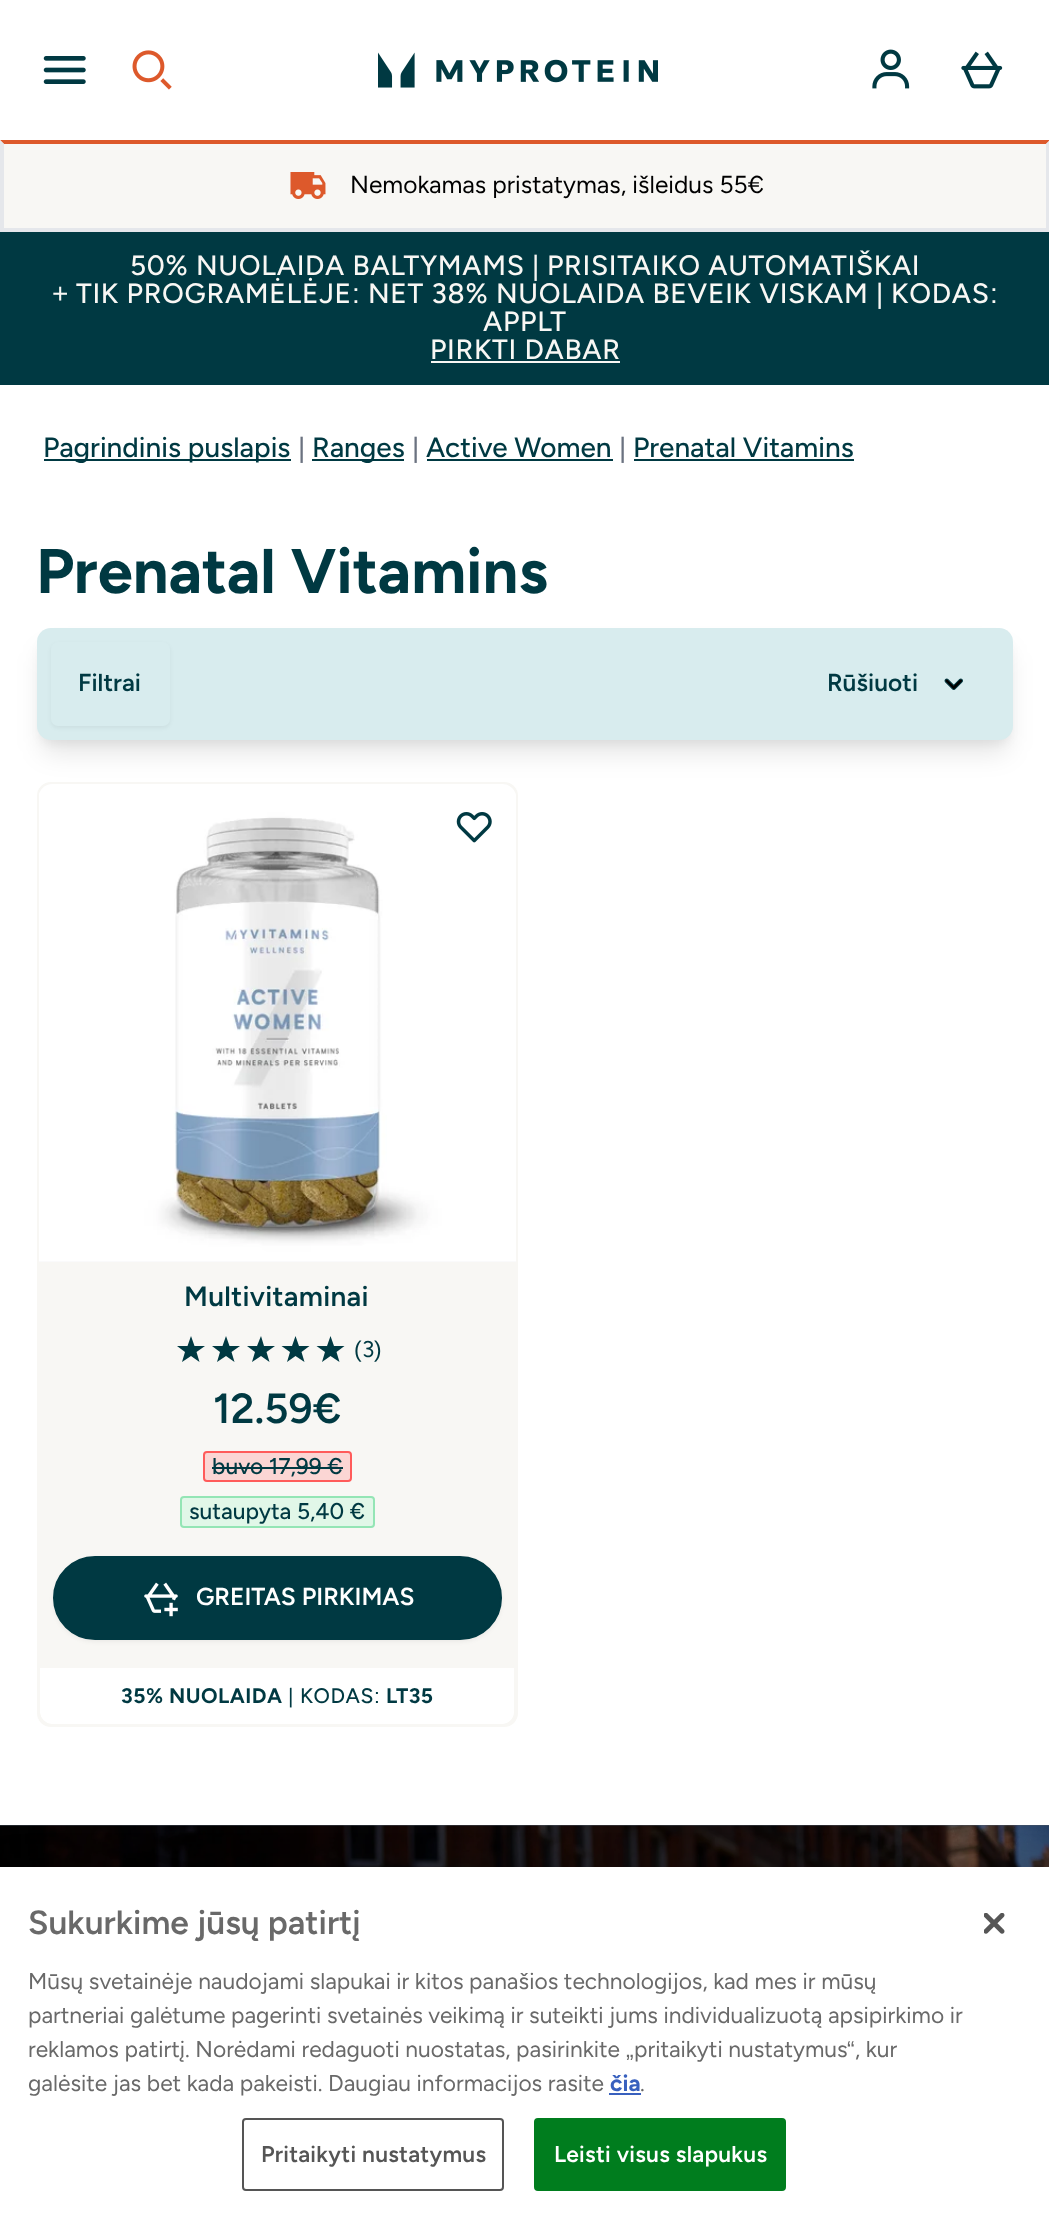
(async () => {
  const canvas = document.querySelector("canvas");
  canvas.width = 1049;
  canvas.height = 2218;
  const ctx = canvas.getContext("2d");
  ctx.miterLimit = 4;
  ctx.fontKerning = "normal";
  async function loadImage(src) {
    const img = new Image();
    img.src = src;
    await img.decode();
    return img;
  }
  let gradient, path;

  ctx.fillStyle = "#ffffff";
  ctx.fillRect(0, 0, 1049, 2218);
  ctx.drawImage(await loadImage("img/1.png"), 43, 56, 43, 28);
  ctx.drawImage(await loadImage("img/2.png"), 132, 50, 40, 40);
  ctx.drawImage(await loadImage("img/3.png"), 378, 52, 280, 36);
  ctx.drawImage(await loadImage("img/4.png"), 872, 49, 38, 40);
  ctx.drawImage(await loadImage("img/5.png"), 961, 51, 42, 38);
  ctx.fillStyle = "#f8f7f4";
  ctx.fillRect(0, 140, 1049, 88);
  ctx.fillStyle = "#dd592b";
  path = new Path2D("M0 140H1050L1046 144H4Z");
  ctx.fill(path);
  ctx.fillStyle = "#e5e7eb";
  path = new Path2D("M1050 140V231L1046 228V144Z");
  ctx.fill(path);
  ctx.fillRect(0, 228, 1049, 4);
  path = new Path2D("M0 231V140L4 144V228Z");
  ctx.fill(path);
  ctx.drawImage(await loadImage("img/6.png"), 290, 172, 36, 27);
  for (const [x, y, w, h, color] of [
    [0, 232, 1049, 153, "#003942"],
    [431, 361, 189, 2, "#f8f7f4"],
    [44, 459, 247, 2, "#003942"],
    [312, 459, 92, 2, "#003942"],
    [427, 459, 186, 2, "#003942"],
    [634, 459, 220, 2, "#003942"],
  ]) {
    ctx.fillStyle = color;
    ctx.fillRect(x, y, w, h);
  }
  ctx.fillStyle = "#f8f7f4";
  ctx.beginPath();
  ctx.roundRect(38, 783, 479, 943, 13);
  ctx.fill();
  ctx.strokeStyle = "#f8f7f4";
  ctx.lineWidth = 2;
  ctx.stroke();
  ctx.fillStyle = "#f3f4f6";
  ctx.beginPath();
  ctx.roundRect(39, 784, 477, 478, [14, 14, 0, 0]);
  ctx.fill();
  ctx.drawImage(await loadImage("img/8.png"), 39, 784, 477, 478);
  ctx.fillStyle = "rgba(0, 0, 0, 0.1)";
  ctx.filter = "blur(13px)";
  ctx.beginPath();
  ctx.roundRect(42, 651, 966, 102, 9);
  ctx.fill();
  ctx.filter = "none";
  ctx.fillStyle = "rgba(0, 0, 0, 0.05)";
  ctx.filter = "blur(5px)";
  ctx.beginPath();
  ctx.roundRect(40, 639, 970, 105, 11);
  ctx.fill();
  ctx.filter = "none";
  ctx.fillStyle = "#d8ecee";
  ctx.beginPath();
  ctx.roundRect(37, 628, 976, 112, 14);
  ctx.fill();
  ctx.fillStyle = "rgba(0, 0, 0, 0.05)";
  ctx.filter = "blur(2px)";
  ctx.beginPath();
  ctx.roundRect(51, 644, 119, 84, 7);
  ctx.fill();
  ctx.filter = "none";
  ctx.fillStyle = "#d8ecee";
  ctx.beginPath();
  ctx.roundRect(51, 642, 119, 84, 7);
  ctx.fill();
  ctx.drawImage(await loadImage("img/7.png"), 944, 678, 19, 12);
  ctx.drawImage(await loadImage("img/9.png"), 456, 812, 36, 31);
  gradient = ctx.createLinearGradient(177, 1336, 205, 1336);
  gradient.addColorStop(1, "#003942");
  gradient.addColorStop(1, "#cccccc");
  ctx.fillStyle = gradient;
  path = new Path2D("M191 1336L194.5 1346H205L196.5 1352L199.5 1362L191 1356L182 1362L185 1352L177 1346H187.5Z");
  ctx.fill(path);
  gradient = ctx.createLinearGradient(212, 1336, 240, 1336);
  gradient.addColorStop(1, "#003942");
  gradient.addColorStop(1, "#cccccc");
  ctx.fillStyle = gradient;
  path = new Path2D("M226 1336L229.5 1346H240L231.5 1352L234.5 1362L226 1356L217 1362L220 1352L212 1346H222.5Z");
  ctx.fill(path);
  gradient = ctx.createLinearGradient(247, 1336, 275, 1336);
  gradient.addColorStop(1, "#003942");
  gradient.addColorStop(1, "#cccccc");
  ctx.fillStyle = gradient;
  path = new Path2D("M261 1336L264 1346H275L266.5 1352L269.5 1362L261 1356L252 1362L255 1352L247 1346H257Z");
  ctx.fill(path);
  gradient = ctx.createLinearGradient(282, 1336, 310, 1336);
  gradient.addColorStop(1, "#003942");
  gradient.addColorStop(1, "#cccccc");
  ctx.fillStyle = gradient;
  path = new Path2D("M295.5 1336L299 1346H309.5L301.5 1352L304.5 1362L295.5 1356L287 1362L290 1352L281.5 1346H292Z");
  ctx.fill(path);
  gradient = ctx.createLinearGradient(317, 1336, 345, 1336);
  gradient.addColorStop(1, "#003942");
  gradient.addColorStop(1, "#cccccc");
  ctx.fillStyle = gradient;
  path = new Path2D("M330.5 1336L334 1346H344.5L336.5 1352L339.5 1362L330.5 1356L322 1362L325 1352L316.5 1346H327Z");
  ctx.fill(path);
  ctx.fillStyle = "#fbd6d4";
  ctx.beginPath();
  ctx.roundRect(204, 1452, 147, 29, 3);
  ctx.fill();
  ctx.strokeStyle = "#ff5b5a";
  ctx.stroke();
  ctx.fillStyle = "#003942";
  ctx.fillRect(212, 1467, 131, 2);
  ctx.fillStyle = "#e1f7e8";
  ctx.beginPath();
  ctx.roundRect(181, 1497, 193, 30, 3);
  ctx.fill();
  ctx.strokeStyle = "#94e5b5";
  ctx.stroke();
  ctx.fillStyle = "rgba(0, 0, 0, 0.05)";
  ctx.filter = "blur(2px)";
  ctx.beginPath();
  ctx.roundRect(53, 1558, 449, 84, 42);
  ctx.fill();
  ctx.filter = "none";
  ctx.fillStyle = "#003942";
  ctx.beginPath();
  ctx.roundRect(54, 1557, 447, 82, 41);
  ctx.fill();
  ctx.strokeStyle = "#003942";
  ctx.stroke();
  ctx.drawImage(await loadImage("img/10.png"), 144, 1582, 34, 35);
  ctx.fillStyle = "#ffffff";
  ctx.beginPath();
  ctx.roundRect(40, 1668, 475, 56, [0, 0, 12, 12]);
  ctx.fill();
  ctx.fillStyle = "#f8f7f4";
  path = new Path2D("M38 1668H516V1712C516 1719 510 1726 502 1726H52C45 1726 38 1719 38 1712ZM40 1668H514V1712C514 1718 509 1724 502 1724H52C46 1724 40 1718 40 1712Z");
  ctx.fill(path, "evenodd");
  ctx.fillStyle = "#4b5563";
  ctx.fillRect(0, 1825, 1049, 1);
  ctx.drawImage(await loadImage("img/11.png"), 0, 1825, 1049, 42);
  ctx.fillStyle = "rgba(0, 0, 0, 0.2)";
  ctx.filter = "blur(16px)";
  ctx.beginPath();
  ctx.rect(0, 1867, 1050, 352);
  ctx.fill();
  ctx.filter = "none";
  ctx.fillStyle = "#ffffff";
  ctx.fillRect(0, 1867, 1049, 351);
  ctx.fillStyle = "#3860be";
  ctx.fillRect(609, 2093, 32, 2);
  ctx.beginPath();
  ctx.roundRect(243, 2119, 260, 71, 3);
  ctx.strokeStyle = "#555555";
  ctx.stroke();
  ctx.fillStyle = "#007d1e";
  ctx.beginPath();
  ctx.roundRect(535, 2119, 250, 71, 3);
  ctx.fill();
  ctx.strokeStyle = "#007d1e";
  ctx.stroke();
  ctx.drawImage(await loadImage("img/12.png"), 984, 1913, 21, 21);
  ctx.font = "24.5px Figtree";
  ctx.fillStyle = "#000000";
  ctx.fillText("Nemokamas pristatymas, išleidus 55€", 350, 193);
  ctx.letterSpacing = "0.7px";
  ctx.font = "500 28px Figtree";
  ctx.fillStyle = "#f8f7f4";
  ctx.fillText("50% NUOLAIDA BALTYMAMS", 130, 275);
  ctx.font = "28px Liberation Sans";
  ctx.fillText("|", 532, 275);
  ctx.font = "500 28px Figtree";
  ctx.fillText("PRISITAIKO AUTOMATIŠKAI", 547, 275);
  ctx.font = "28px Liberation Sans";
  ctx.fillText("+", 52, 303);
  ctx.font = "500 28px Figtree";
  ctx.fillText("TIK PROGRAMĖLĖJE", 76, 303);
  ctx.font = "28px Liberation Sans";
  ctx.fillText(":", 352, 303);
  ctx.font = "500 28px Figtree";
  ctx.fillText("NET 38% NUOLAIDA BEVEIK VISKAM", 368, 303);
  ctx.font = "28px Liberation Sans";
  ctx.fillText("|", 876, 303);
  ctx.font = "500 28px Figtree";
  ctx.fillText("KODAS", 891, 303);
  ctx.font = "28px Liberation Sans";
  ctx.fillText(":", 990, 303);
  ctx.font = "500 28px Figtree";
  ctx.fillText("APPLT", 483, 331);
  ctx.fillText("PIRKTI DABAR", 430, 359);
  ctx.letterSpacing = "0px";
  ctx.fillStyle = "#003942";
  ctx.fillText("Pagrindinis puslapis", 43, 457);
  ctx.font = "28px Liberation Sans";
  ctx.fillStyle = "#6b7280";
  ctx.fillText("|", 298, 457);
  ctx.font = "500 28px Figtree";
  ctx.fillStyle = "#003942";
  ctx.fillText("Ranges", 312, 457);
  ctx.font = "28px Liberation Sans";
  ctx.fillStyle = "#6b7280";
  ctx.fillText("|", 412, 457);
  ctx.font = "500 28px Figtree";
  ctx.fillStyle = "#003942";
  ctx.fillText("Active Women", 426, 457);
  ctx.font = "28px Liberation Sans";
  ctx.fillStyle = "#6b7280";
  ctx.fillText("|", 619, 457);
  ctx.font = "500 28px Figtree";
  ctx.fillStyle = "#003942";
  ctx.fillText("Prenatal Vitamins", 633, 457);
  ctx.font = "bold 63px Figtree";
  ctx.fillText("Prenatal Vitamins", 36, 593);
  ctx.font = "600 24.5px Figtree";
  ctx.fillText("Filtrai", 78, 691);
  ctx.fillText("Rūšiuoti", 827, 691);
  ctx.letterSpacing = "0.3px";
  ctx.font = "600 28px Figtree";
  ctx.fillText("Multivitaminai", 184, 1306);
  ctx.letterSpacing = "0px";
  ctx.font = "22.75px Liberation Sans";
  ctx.fillText("(", 354, 1357);
  ctx.font = "22.75px Figtree";
  ctx.fillText("3", 362, 1357);
  ctx.font = "22.75px Liberation Sans";
  ctx.fillText(")", 374, 1357);
  ctx.font = "600 42px Figtree";
  ctx.fillText("12.59€", 213, 1423);
  ctx.font = "500 22.75px Figtree";
  ctx.fillText("buvo 17,99 €", 212, 1474);
  ctx.fillText("sutaupyta 5,40 €", 189, 1519);
  ctx.font = "600 24.5px Figtree";
  ctx.fillStyle = "#ffffff";
  ctx.fillText("GREITAS PIRKIMAS", 196, 1605);
  ctx.letterSpacing = "0.5px";
  ctx.font = "bold 21px Figtree";
  ctx.fillStyle = "#003942";
  ctx.fillText("35% NUOLAIDA", 121, 1703);
  ctx.font = "21px Liberation Sans";
  ctx.fillText("|", 288, 1703);
  ctx.font = "500 21px Figtree";
  ctx.fillText("KODAS", 300, 1703);
  ctx.font = "21px Liberation Sans";
  ctx.fillText(":", 374, 1703);
  ctx.font = "bold 21px Figtree";
  ctx.fillText("LT35", 386, 1703);
  ctx.letterSpacing = "0px";
  ctx.font = "600 33.5px Figtree";
  ctx.fillStyle = "#696969";
  ctx.fillText("Sukurkime jūsų patirtį", 28, 1934);
  ctx.font = "22.75px Figtree";
  for (const [text, x, y] of [
    ["Mūsų svetainėje naudojami slapukai ir kitos panašios technologijos, kad mes ir mūsų", 28, 1989],
    ["partneriai galėtume pagerinti svetainės veikimą ir suteikti jums individualizuotą apsipirkimo ir", 28, 2023],
    ["reklamos patirtį. Norėdami redaguoti nuostatas, pasirinkite", 28, 2057],
  ]) {
    ctx.fillText(text, x, y);
  }
  ctx.font = "22.75px Liberation Sans";
  ctx.fillText("„", 626, 2057);
  ctx.font = "22.75px Figtree";
  ctx.fillText("pritaikyti nustatymus", 634, 2057);
  ctx.font = "22.75px Liberation Sans";
  ctx.fillText("“", 847, 2057);
  ctx.font = "22.75px Figtree";
  ctx.fillText(", kur", 855, 2057);
  ctx.fillText("galėsite jas bet kada pakeisti. Daugiau informacijos rasite", 28, 2091);
  ctx.font = "bold 22.75px Figtree";
  ctx.fillStyle = "#3860be";
  ctx.fillText("čia", 610, 2091);
  ctx.font = "22.75px Figtree";
  ctx.fillStyle = "#696969";
  ctx.fillText(".", 640, 2091);
  ctx.letterSpacing = "0.25px";
  ctx.font = "600 22.75px Figtree";
  ctx.fillStyle = "#555555";
  ctx.fillText("Pritaikyti nustatymus", 261, 2162);
  ctx.fillStyle = "#ffffff";
  ctx.fillText("Leisti visus slapukus", 554, 2162);
})();
